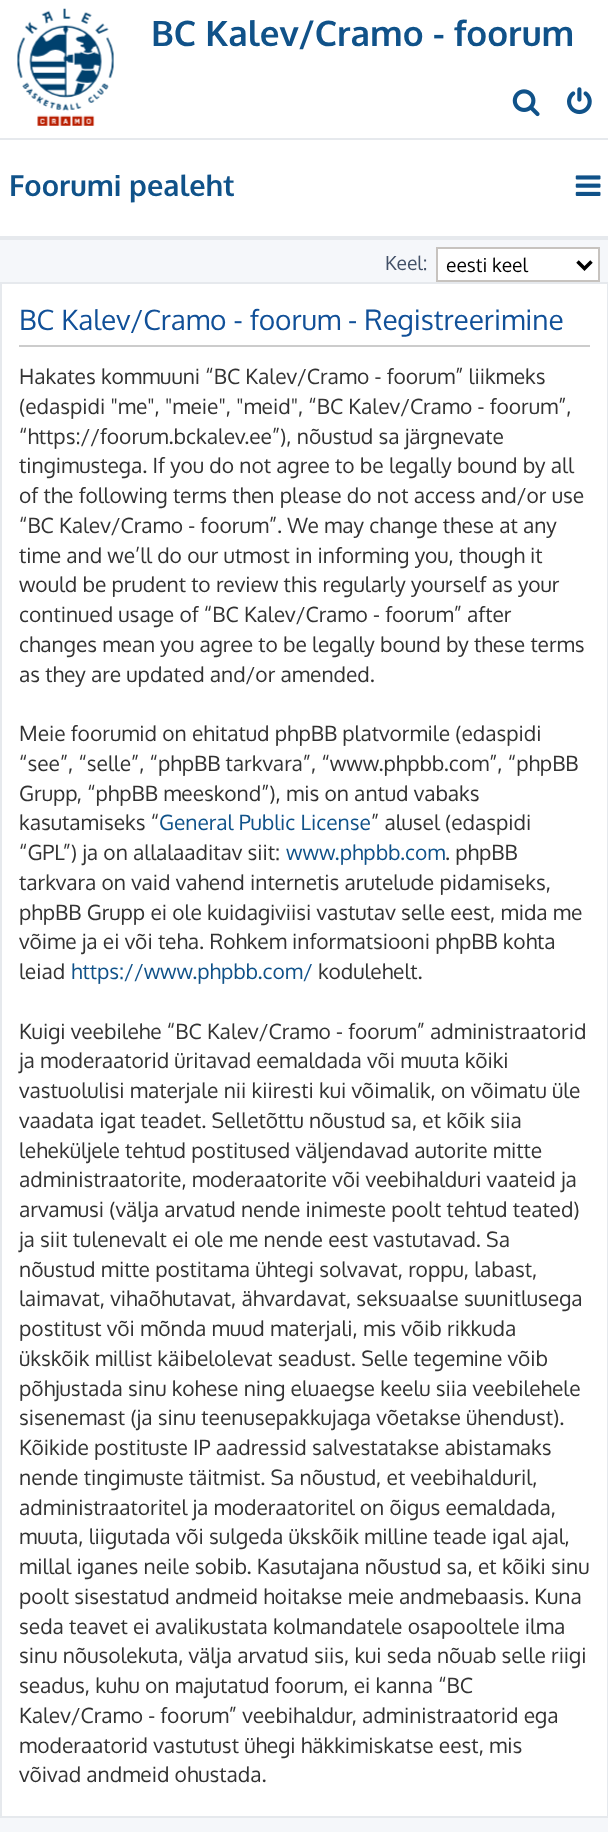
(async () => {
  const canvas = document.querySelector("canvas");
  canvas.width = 608;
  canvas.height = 1832;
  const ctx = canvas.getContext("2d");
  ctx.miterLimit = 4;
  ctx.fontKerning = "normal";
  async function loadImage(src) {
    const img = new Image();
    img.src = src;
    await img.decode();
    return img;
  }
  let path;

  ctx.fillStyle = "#f5f7fa";
  ctx.fillRect(0, 0, 608, 1832);
  ctx.fillStyle = "#ffffff";
  ctx.fillRect(0, 0, 608, 138);
  ctx.fillStyle = "#e6e9ed";
  ctx.fillRect(0, 138, 608, 2);
  ctx.drawImage(await loadImage("img/1.png"), 17, 8, 97, 118);
  ctx.drawImage(await loadImage("img/2.png"), 512, 89, 28, 28);
  ctx.drawImage(await loadImage("img/3.png"), 567, 87, 25, 28);
  ctx.fillStyle = "#ffffff";
  ctx.fillRect(0, 140, 608, 96);
  ctx.fillStyle = "#e6e9ed";
  ctx.fillRect(0, 236, 608, 4);
  ctx.drawImage(await loadImage("img/4.png"), 575, 175, 26, 21);
  ctx.fillStyle = "#ffffff";
  ctx.beginPath();
  ctx.rect(437, 248, 162, 33);
  ctx.fill();
  ctx.strokeStyle = "#c7c3bf";
  ctx.lineWidth = 2;
  ctx.stroke();
  path = new Path2D("M577.5 261.5L584.5 268.5L591.5 261.5");
  ctx.strokeStyle = "#000000";
  ctx.lineWidth = 3.5;
  ctx.stroke(path);
  ctx.beginPath();
  ctx.rect(1, 283, 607, 1534);
  ctx.fill();
  ctx.strokeStyle = "#e6e9ed";
  ctx.lineWidth = 2;
  ctx.stroke();
  ctx.fillStyle = "#cccccc";
  ctx.fillRect(19, 345, 571, 2);
  ctx.font = "bold 35px Oxygen";
  ctx.fillStyle = "#105289";
  ctx.fillText("BC Kalev/Cramo - foorum", 151, 46);
  ctx.font = "bold 29px Oxygen";
  ctx.fillText("Foorumi pealeht", 9, 196);
  ctx.font = "19.25px Oxygen";
  ctx.fillStyle = "#425067";
  ctx.fillText("Keel:", 385, 270);
  ctx.fillStyle = "#000000";
  ctx.fillText("eesti keel", 446, 272);
  ctx.font = "28px Oxygen";
  ctx.fillStyle = "#115098";
  ctx.fillText("BC Kalev/Cramo - foorum - Registreerimine", 19, 330);
  ctx.font = "21px Oxygen";
  ctx.fillStyle = "#333333";
  for (const [text, x, y] of [
    ["Hakates kommuuni “BC Kalev/Cramo - foorum” liikmeks", 19, 384],
    ["(edaspidi \"me\", \"meie\", \"meid\", “BC Kalev/Cramo - foorum”,", 19, 414],
    ["“https://foorum.bckalev.ee”), nõustud sa järgnevate", 19, 444],
    ["tingimustega. If you do not agree to be legally bound by all", 19, 473],
    ["of the following terms then please do not access and/or use", 19, 503],
    ["“BC Kalev/Cramo - foorum”. We may change these at any", 19, 533],
    ["time and we’ll do our utmost in informing you, though it", 19, 563],
    ["would be prudent to review this regularly yourself as your", 19, 592],
    ["continued usage of “BC Kalev/Cramo - foorum” after", 19, 622],
    ["changes mean you agree to be legally bound by these terms", 19, 652],
    ["as they are updated and/or amended.", 19, 682],
    ["Meie foorumid on ehitatud phpBB platvormile (edaspidi", 19, 741],
    ["“see”, “selle”, “phpBB tarkvara”, “www.phpbb.com”, “phpBB", 19, 771],
    ["Grupp, “phpBB meeskond”), mis on antud vabaks", 19, 801],
    ["kasutamiseks “", 19, 830],
  ]) {
    ctx.fillText(text, x, y);
  }
  ctx.fillStyle = "#105289";
  ctx.fillText("General Public License", 159, 830);
  ctx.fillStyle = "#333333";
  ctx.fillText("” alusel (edaspidi", 371, 830);
  ctx.fillText("“GPL”) ja on allalaaditav siit:", 19, 860);
  ctx.fillStyle = "#105289";
  ctx.fillText("www.phpbb.com", 286, 860);
  ctx.fillStyle = "#333333";
  for (const [text, x, y] of [
    [". phpBB", 445, 860],
    ["tarkvara on vaid vahend internetis arutelude pidamiseks,", 19, 890],
    ["phpBB Grupp ei ole kuidagiviisi vastutav selle eest, mida me", 19, 920],
    ["võime ja ei või teha. Rohkem informatsiooni phpBB kohta", 19, 949],
    ["leiad", 19, 979],
  ]) {
    ctx.fillText(text, x, y);
  }
  ctx.fillStyle = "#105289";
  ctx.fillText("https://www.phpbb.com/", 71, 979);
  ctx.fillStyle = "#333333";
  for (const [text, x, y] of [
    ["kodulehelt.", 318, 979],
    ["Kuigi veebilehe “BC Kalev/Cramo - foorum” administraatorid", 19, 1039],
    ["ja moderaatorid üritavad eemaldada või muuta kõiki", 19, 1068],
    ["vastuolulisi materjale nii kiiresti kui võimalik, on võimatu üle", 19, 1098],
    ["vaadata igat teadet. Selletõttu nõustud sa, et kõik siia", 19, 1128],
    ["leheküljele tehtud postitused väljendavad autorite mitte", 19, 1158],
    ["administraatorite, moderaatorite või veebihalduri vaateid ja", 19, 1187],
    ["arvamusi (välja arvatud nende inimeste poolt tehtud teated)", 19, 1217],
    ["ja siit tulenevalt ei ole me nende eest vastutavad. Sa", 19, 1247],
    ["nõustud mitte postitama ühtegi solvavat, roppu, labast,", 19, 1277],
    ["laimavat, vihaõhutavat, ähvardavat, seksuaalse suunitlusega", 19, 1306],
    ["postitust või mõnda muud materjali, mis võib rikkuda", 19, 1336],
    ["ükskõik millist käibelolevat seadust. Selle tegemine võib", 19, 1366],
    ["põhjustada sinu kohese ning eluaegse keelu siia veebilehele", 19, 1396],
    ["sisenemast (ja sinu teenusepakkujaga võetakse ühendust).", 19, 1425],
    ["Kõikide postituste IP aadressid salvestatakse abistamaks", 19, 1455],
    ["nende tingimuste täitmist. Sa nõustud, et veebihalduril,", 19, 1485],
    ["administraatoritel ja moderaatoritel on õigus eemaldada,", 19, 1515],
    ["muuta, liigutada või sulgeda ükskõik milline teade igal ajal,", 19, 1544],
    ["millal iganes neile sobib. Kasutajana nõustud sa, et kõiki sinu", 19, 1574],
    ["poolt sisestatud andmeid hoitakse meie andmebaasis. Kuna", 19, 1604],
    ["seda teavet ei avalikustata kolmandatele osapooltele ilma", 19, 1634],
    ["sinu nõusolekuta, välja arvatud siis, kui seda nõuab selle riigi", 19, 1663],
    ["seadus, kuhu on majutatud foorum, ei kanna “BC", 19, 1693],
    ["Kalev/Cramo - foorum” veebihaldur, administraatorid ega", 19, 1723],
    ["moderaatorid vastutust ühegi häkkimiskatse eest, mis", 19, 1753],
    ["võivad andmeid ohustada.", 19, 1782],
  ]) {
    ctx.fillText(text, x, y);
  }
})();
